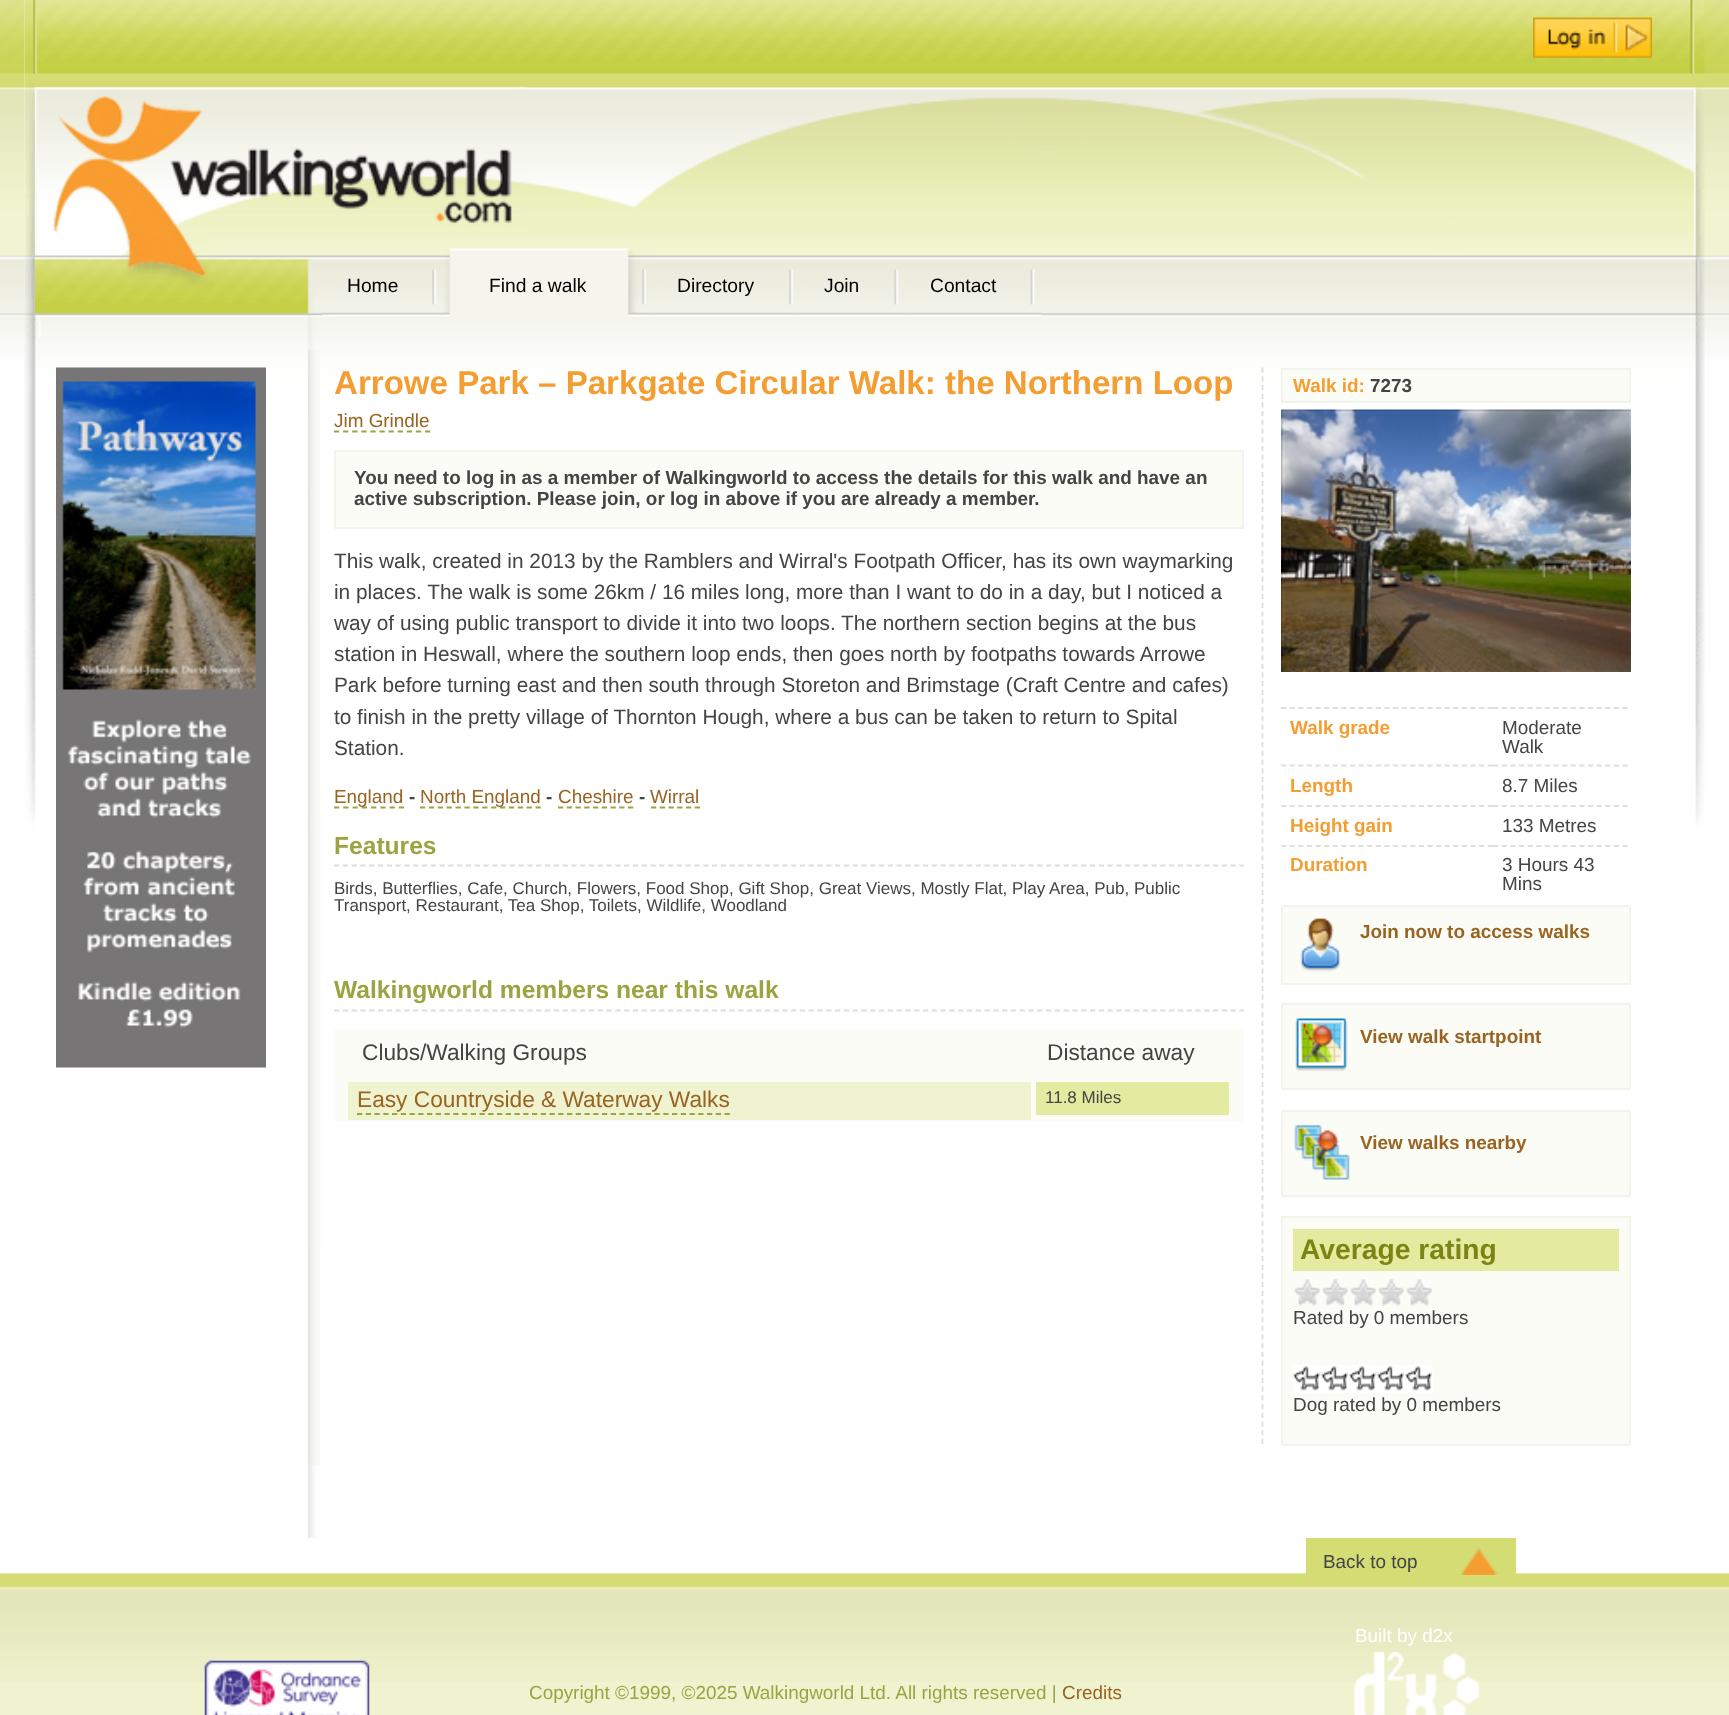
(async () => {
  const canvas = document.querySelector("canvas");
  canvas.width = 1729;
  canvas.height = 1715;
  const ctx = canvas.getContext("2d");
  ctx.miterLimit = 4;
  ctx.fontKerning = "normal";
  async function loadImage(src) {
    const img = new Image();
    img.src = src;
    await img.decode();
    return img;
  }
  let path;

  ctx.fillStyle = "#ffffff";
  ctx.fillRect(0, 0, 1729, 1715);
  ctx.drawImage(await loadImage("img/1.png"), 0, 0, 1729, 359);
  ctx.drawImage(await loadImage("img/2.png"), 24, 0, 298, 1538);
  ctx.drawImage(await loadImage("img/3.png"), 24, 0, 1681, 1253);
  ctx.drawImage(await loadImage("img/4.png"), 35, 87, 492, 228);
  ctx.drawImage(await loadImage("img/5.png"), 1533, 17, 119, 41);
  ctx.drawImage(await loadImage("img/6.png"), 322, 312, 10, 5);
  ctx.drawImage(await loadImage("img/7.png"), 332, 269, 111, 48);
  ctx.drawImage(await loadImage("img/8.png"), 443, 250, 7, 67);
  ctx.drawImage(await loadImage("img/9.png"), 449, 248, 204, 69);
  ctx.drawImage(await loadImage("img/6.png"), 653, 312, 10, 5);
  ctx.drawImage(await loadImage("img/10.png"), 663, 269, 137, 48);
  ctx.drawImage(await loadImage("img/6.png"), 800, 312, 10, 5);
  ctx.drawImage(await loadImage("img/11.png"), 810, 269, 95, 48);
  ctx.drawImage(await loadImage("img/6.png"), 905, 312, 10, 5);
  ctx.drawImage(await loadImage("img/12.png"), 915, 269, 127, 48);
  ctx.drawImage(await loadImage("img/13.png"), 56, 367, 210, 701);
  ctx.drawImage(await loadImage("img/14.png"), 308, 350, 12, 1115);
  path = new Path2D("M334 431.5H430.5");
  ctx.strokeStyle = "#9ca341";
  ctx.lineWidth = 1.8;
  ctx.setLineDash([5.25, 3.85]);
  ctx.stroke(path);
  ctx.fillStyle = "#fbfcf5";
  ctx.beginPath();
  ctx.rect(335, 451, 908, 77);
  ctx.fill();
  ctx.strokeStyle = "#f2f3eb";
  ctx.lineWidth = 2;
  ctx.setLineDash([]);
  ctx.stroke();
  path = new Path2D("M334 807.5H404");
  ctx.strokeStyle = "#9ca341";
  ctx.lineWidth = 1.8;
  ctx.setLineDash([5.25, 4.01]);
  ctx.stroke(path);
  path = new Path2D("M420 807.5H541");
  ctx.setLineDash([5.25, 3.64]);
  ctx.stroke(path);
  path = new Path2D("M558 807.5H633.5");
  ctx.setLineDash([5.25, 3.5]);
  ctx.stroke(path);
  path = new Path2D("M651 807.5H700");
  ctx.stroke(path);
  path = new Path2D("M334 865.5H1244");
  ctx.strokeStyle = "#dddddd";
  ctx.setLineDash([5.25, 3.54]);
  ctx.stroke(path);
  path = new Path2D("M334 1010.5H1244");
  ctx.stroke(path);
  ctx.fillRect(334, 1029, 910, 93);
  ctx.fillStyle = "#f0f3d0";
  ctx.fillRect(348, 1082, 683, 38);
  path = new Path2D("M357 1114H730");
  ctx.strokeStyle = "#9ca341";
  ctx.setLineDash([5.25, 3.5]);
  ctx.stroke(path);
  ctx.fillStyle = "#e4eaa0";
  ctx.fillRect(1036, 1082, 193, 33);
  path = new Path2D("M1262.5 367.5V1445.5");
  ctx.strokeStyle = "#dfdfd9";
  ctx.setLineDash([5.25, 3.46]);
  ctx.stroke(path);
  ctx.fillStyle = "#fbfcf5";
  ctx.beginPath();
  ctx.rect(1282, 369, 348, 33);
  ctx.fill();
  ctx.strokeStyle = "#f2f3eb";
  ctx.lineWidth = 2;
  ctx.setLineDash([]);
  ctx.stroke();
  ctx.drawImage(await loadImage("img/15.png"), 1281, 409, 350, 263);
  path = new Path2D("M1281 708H1493");
  ctx.strokeStyle = "#dfdfd9";
  ctx.lineWidth = 1.8;
  ctx.setLineDash([5.25, 3.36]);
  ctx.stroke(path);
  path = new Path2D("M1493 708H1627.5");
  ctx.setLineDash([5.25, 3.38]);
  ctx.stroke(path);
  path = new Path2D("M1281 765.5H1493");
  ctx.setLineDash([5.25, 3.36]);
  ctx.stroke(path);
  path = new Path2D("M1493 765.5H1627.5");
  ctx.setLineDash([5.25, 3.38]);
  ctx.stroke(path);
  path = new Path2D("M1281 806H1493");
  ctx.setLineDash([5.25, 3.36]);
  ctx.stroke(path);
  path = new Path2D("M1493 806H1627.5");
  ctx.setLineDash([5.25, 3.38]);
  ctx.stroke(path);
  path = new Path2D("M1281 846H1493");
  ctx.setLineDash([5.25, 3.36]);
  ctx.stroke(path);
  path = new Path2D("M1493 846H1627.5");
  ctx.setLineDash([5.25, 3.38]);
  ctx.stroke(path);
  ctx.beginPath();
  ctx.rect(1282, 906, 348, 78);
  ctx.fill();
  ctx.strokeStyle = "#f2f3eb";
  ctx.lineWidth = 2;
  ctx.setLineDash([]);
  ctx.stroke();
  ctx.drawImage(await loadImage("img/16.png"), 1300, 918, 41, 54);
  ctx.beginPath();
  ctx.rect(1282, 1004, 348, 85);
  ctx.fill();
  ctx.stroke();
  ctx.drawImage(await loadImage("img/17.png"), 1295, 1018, 53, 54);
  ctx.beginPath();
  ctx.rect(1282, 1111, 348, 85);
  ctx.fill();
  ctx.stroke();
  ctx.drawImage(await loadImage("img/18.png"), 1294, 1124, 56, 56);
  ctx.beginPath();
  ctx.rect(1282, 1217, 348, 228);
  ctx.fill();
  ctx.stroke();
  ctx.fillStyle = "#e4eaa0";
  ctx.fillRect(1293, 1229, 326, 42);
  ctx.drawImage(await loadImage("img/19.png"), 1294, 1279, 26, 27);
  ctx.drawImage(await loadImage("img/19.png"), 1322, 1279, 26, 27);
  ctx.drawImage(await loadImage("img/19.png"), 1350, 1279, 26, 27);
  ctx.drawImage(await loadImage("img/19.png"), 1378, 1279, 26, 27);
  ctx.drawImage(await loadImage("img/20.png"), 1406, 1279, 26, 27);
  ctx.drawImage(await loadImage("img/21.png"), 1293, 1365, 28, 28);
  ctx.drawImage(await loadImage("img/21.png"), 1321, 1365, 28, 28);
  ctx.drawImage(await loadImage("img/22.png"), 1349, 1365, 28, 28);
  ctx.drawImage(await loadImage("img/21.png"), 1377, 1365, 28, 28);
  ctx.drawImage(await loadImage("img/22.png"), 1405, 1365, 28, 28);
  ctx.fillStyle = "#f0f3d0";
  ctx.fillRect(0, 1538, 1729, 177);
  ctx.drawImage(await loadImage("img/23.png"), 0, 1538, 1729, 144);
  ctx.fillStyle = "#d4dc74";
  ctx.fillRect(1306, 1538, 210, 37);
  ctx.drawImage(await loadImage("img/24.png"), 1461, 1547, 37, 28);
  ctx.drawImage(await loadImage("img/25.png"), 1354, 1652, 126, 63);
  ctx.drawImage(await loadImage("img/26.png"), 204, 1660, 166, 55);
  ctx.font = "19.25px Liberation Sans";
  ctx.fillStyle = "#000000";
  for (const [text, x, y] of [
    ["Home", 347, 292],
    ["Find a walk", 489, 292],
    ["Directory", 677, 292],
    ["Join", 824, 292],
    ["Contact", 930, 292],
  ]) {
    ctx.fillText(text, x, y);
  }
  ctx.font = "bold 33.1px Liberation Sans";
  ctx.fillStyle = "#f49d32";
  ctx.fillText("Arrowe Park – Parkgate Circular Walk: the Northern Loop", 334, 394);
  ctx.font = "18.9px Liberation Sans";
  ctx.fillStyle = "#996321";
  ctx.fillText("Jim Grindle", 334, 427);
  ctx.font = "bold 18.9px Liberation Sans";
  ctx.fillStyle = "#444444";
  ctx.fillText("You need to log in as a member of Walkingworld to access the details for this walk and have an", 354, 484);
  ctx.fillText("active subscription. Please join, or log in above if you are already a member.", 354, 505);
  ctx.font = "20.8px Liberation Sans";
  for (const [text, x, y] of [
    ["This walk, created in 2013 by the Ramblers and Wirral's Footpath Officer, has its own waymarking", 334, 568],
    ["in places. The walk is some 26km / 16 miles long, more than I want to do in a day, but I noticed a", 334, 599],
    ["way of using public transport to divide it into two loops. The northern section begins at the bus", 334, 630],
    ["station in Heswall, where the southern loop ends, then goes north by footpaths towards Arrowe", 334, 661],
    ["Park before turning east and then south through Storeton and Brimstage (Craft Centre and cafes)", 334, 692],
    ["to finish in the pretty village of Thornton Hough, where a bus can be taken to return to Spital", 334, 724],
    ["Station.", 334, 755],
  ]) {
    ctx.fillText(text, x, y);
  }
  ctx.font = "18.9px Liberation Sans";
  ctx.fillStyle = "#996321";
  ctx.fillText("England", 334, 803);
  ctx.font = "bold 18.9px Liberation Sans";
  ctx.fillStyle = "#444444";
  ctx.fillText("-", 409, 803);
  ctx.font = "18.9px Liberation Sans";
  ctx.fillStyle = "#996321";
  ctx.fillText("North England", 420, 803);
  ctx.font = "bold 18.9px Liberation Sans";
  ctx.fillStyle = "#444444";
  ctx.fillText("-", 546, 803);
  ctx.font = "18.9px Liberation Sans";
  ctx.fillStyle = "#996321";
  ctx.fillText("Cheshire", 558, 803);
  ctx.font = "bold 18.9px Liberation Sans";
  ctx.fillStyle = "#444444";
  ctx.fillText("-", 639, 803);
  ctx.font = "18.9px Liberation Sans";
  ctx.fillStyle = "#996321";
  ctx.fillText("Wirral", 650, 803);
  ctx.font = "bold 24.6px Liberation Sans";
  ctx.fillStyle = "#9ca341";
  ctx.fillText("Features", 334, 854);
  ctx.font = "17px Liberation Sans";
  ctx.fillStyle = "#444444";
  ctx.fillText("Birds, Butterflies, Cafe, Church, Flowers, Food Shop, Gift Shop, Great Views, Mostly Flat, Play Area, Pub, Public", 334, 894);
  ctx.fillText("Transport, Restaurant, Tea Shop, Toilets, Wildlife, Woodland", 334, 911);
  ctx.font = "bold 24.6px Liberation Sans";
  ctx.fillStyle = "#9ca341";
  ctx.fillText("Walkingworld members near this walk", 334, 998);
  ctx.font = "22.7px Liberation Sans";
  ctx.fillStyle = "#444444";
  ctx.fillText("Clubs/Walking Groups", 362, 1060);
  ctx.fillText("Distance away", 1047, 1060);
  ctx.fillStyle = "#996321";
  ctx.fillText("Easy Countryside & Waterway Walks", 357, 1107);
  ctx.font = "17px Liberation Sans";
  ctx.fillStyle = "#444444";
  ctx.fillText("11.8 Miles", 1045, 1103);
  ctx.font = "bold 18.9px Liberation Sans";
  ctx.fillStyle = "#f49d32";
  ctx.fillText("Walk id:", 1293, 392);
  ctx.fillStyle = "#444444";
  ctx.fillText("7273", 1370, 392);
  ctx.fillStyle = "#f49d32";
  ctx.fillText("Walk grade", 1290, 734);
  ctx.font = "18.9px Liberation Sans";
  ctx.fillStyle = "#444444";
  ctx.fillText("Moderate", 1502, 734);
  ctx.fillText("Walk", 1502, 753);
  ctx.font = "bold 18.9px Liberation Sans";
  ctx.fillStyle = "#f49d32";
  ctx.fillText("Length", 1290, 792);
  ctx.font = "18.9px Liberation Sans";
  ctx.fillStyle = "#444444";
  ctx.fillText("8.7 Miles", 1502, 792);
  ctx.font = "bold 18.9px Liberation Sans";
  ctx.fillStyle = "#f49d32";
  ctx.fillText("Height gain", 1290, 832);
  ctx.font = "18.9px Liberation Sans";
  ctx.fillStyle = "#444444";
  ctx.fillText("133 Metres", 1502, 832);
  ctx.font = "bold 18.9px Liberation Sans";
  ctx.fillStyle = "#f49d32";
  ctx.fillText("Duration", 1290, 871);
  ctx.font = "18.9px Liberation Sans";
  ctx.fillStyle = "#444444";
  ctx.fillText("3 Hours 43", 1502, 871);
  ctx.fillText("Mins", 1502, 890);
  ctx.font = "bold 18.9px Liberation Sans";
  ctx.fillStyle = "#996321";
  for (const [text, x, y] of [
    ["Join now to access walks", 1360, 938],
    ["View walk startpoint", 1360, 1043],
    ["View walks nearby", 1360, 1149],
  ]) {
    ctx.fillText(text, x, y);
  }
  ctx.font = "bold 28.25px Liberation Sans";
  ctx.fillStyle = "#7c8514";
  ctx.fillText("Average rating", 1300, 1259);
  ctx.font = "18.9px Liberation Sans";
  ctx.fillStyle = "#444444";
  for (const [text, x, y] of [
    ["Rated by 0 members", 1293, 1324],
    ["Dog rated by 0 members", 1293, 1411],
    ["Back to top", 1323, 1568],
  ]) {
    ctx.fillText(text, x, y);
  }
  ctx.fillStyle = "#ffffff";
  ctx.fillText("Built by d2x", 1355, 1642);
  ctx.fillStyle = "#9ca341";
  ctx.fillText("Copyright ©1999, ©2025 Walkingworld Ltd. All rights reserved |", 529, 1699);
  ctx.fillStyle = "#996321";
  ctx.fillText("Credits", 1062, 1699);
})();
